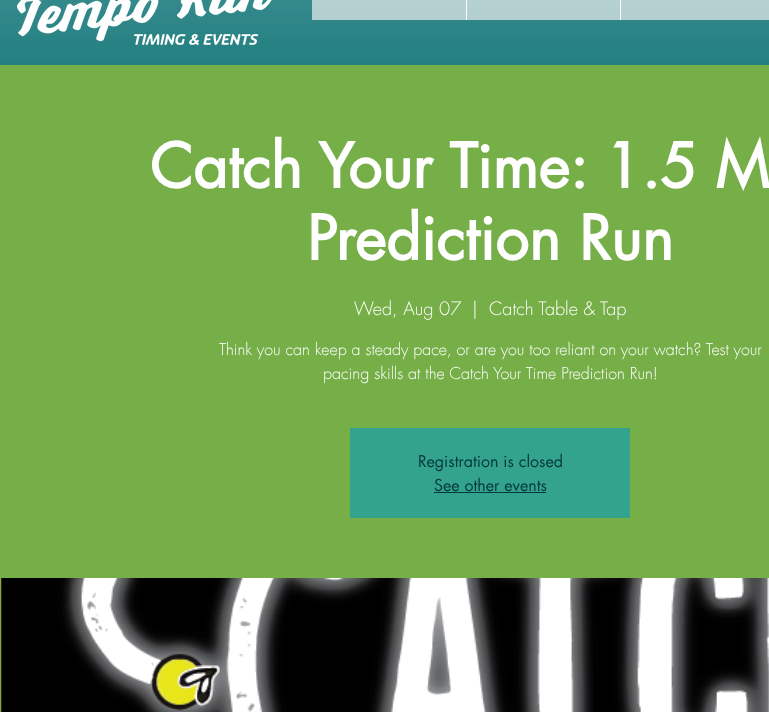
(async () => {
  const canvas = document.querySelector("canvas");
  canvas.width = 769;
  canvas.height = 712;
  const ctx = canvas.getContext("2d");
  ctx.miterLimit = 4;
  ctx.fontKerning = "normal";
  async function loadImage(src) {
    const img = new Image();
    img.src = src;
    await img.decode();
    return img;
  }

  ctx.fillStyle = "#0a7173";
  ctx.fillRect(0, 0, 769, 712);
  ctx.drawImage(await loadImage("img/1.png"), 0, 0, 769, 65);
  ctx.drawImage(await loadImage("img/2.png"), 17, 0, 255, 45);
  for (const [x, y, w, h, color] of [
    [312, 0, 457, 20, "rgba(241, 241, 241, 0.68)"],
    [466, 0, 1, 20, "#ffffff"],
    [620, 0, 1, 20, "#ffffff"],
    [0, 65, 769, 647, "#76af48"],
    [350, 428, 280, 90, "#34a38e"],
    [434, 492, 112, 1, "#05393a"],
    [1, 578, 1, 134, "#a46e13"],
  ]) {
    ctx.fillStyle = color;
    ctx.fillRect(x, y, w, h);
  }
  ctx.drawImage(await loadImage("img/3.png"), 1, 578, 768, 134);
  ctx.font = "bold 60px futura";
  ctx.fillStyle = "#ffffff";
  ctx.fillText("Catch Your Time: 1.5 M", 150, 188);
  ctx.fillText("Prediction Run", 307, 260);
  ctx.font = "300 18px futura";
  for (const [text, x, y] of [
    ["Wed, Aug 07", 354, 315],
    ["|", 472, 315],
    ["Catch Table & Tap", 489, 315],
  ]) {
    ctx.fillText(text, x, y);
  }
  ctx.font = "300 16px futura";
  ctx.fillText("Think you can keep a steady pace, or are you too reliant on your watch? Test your", 219, 355);
  ctx.fillText("pacing skills at the Catch Your Time Prediction Run!", 323, 379);
  ctx.font = "16px futura";
  ctx.fillStyle = "#05393a";
  ctx.fillText("Registration is closed", 418, 467);
  ctx.fillText("See other events", 434, 491);
})();
